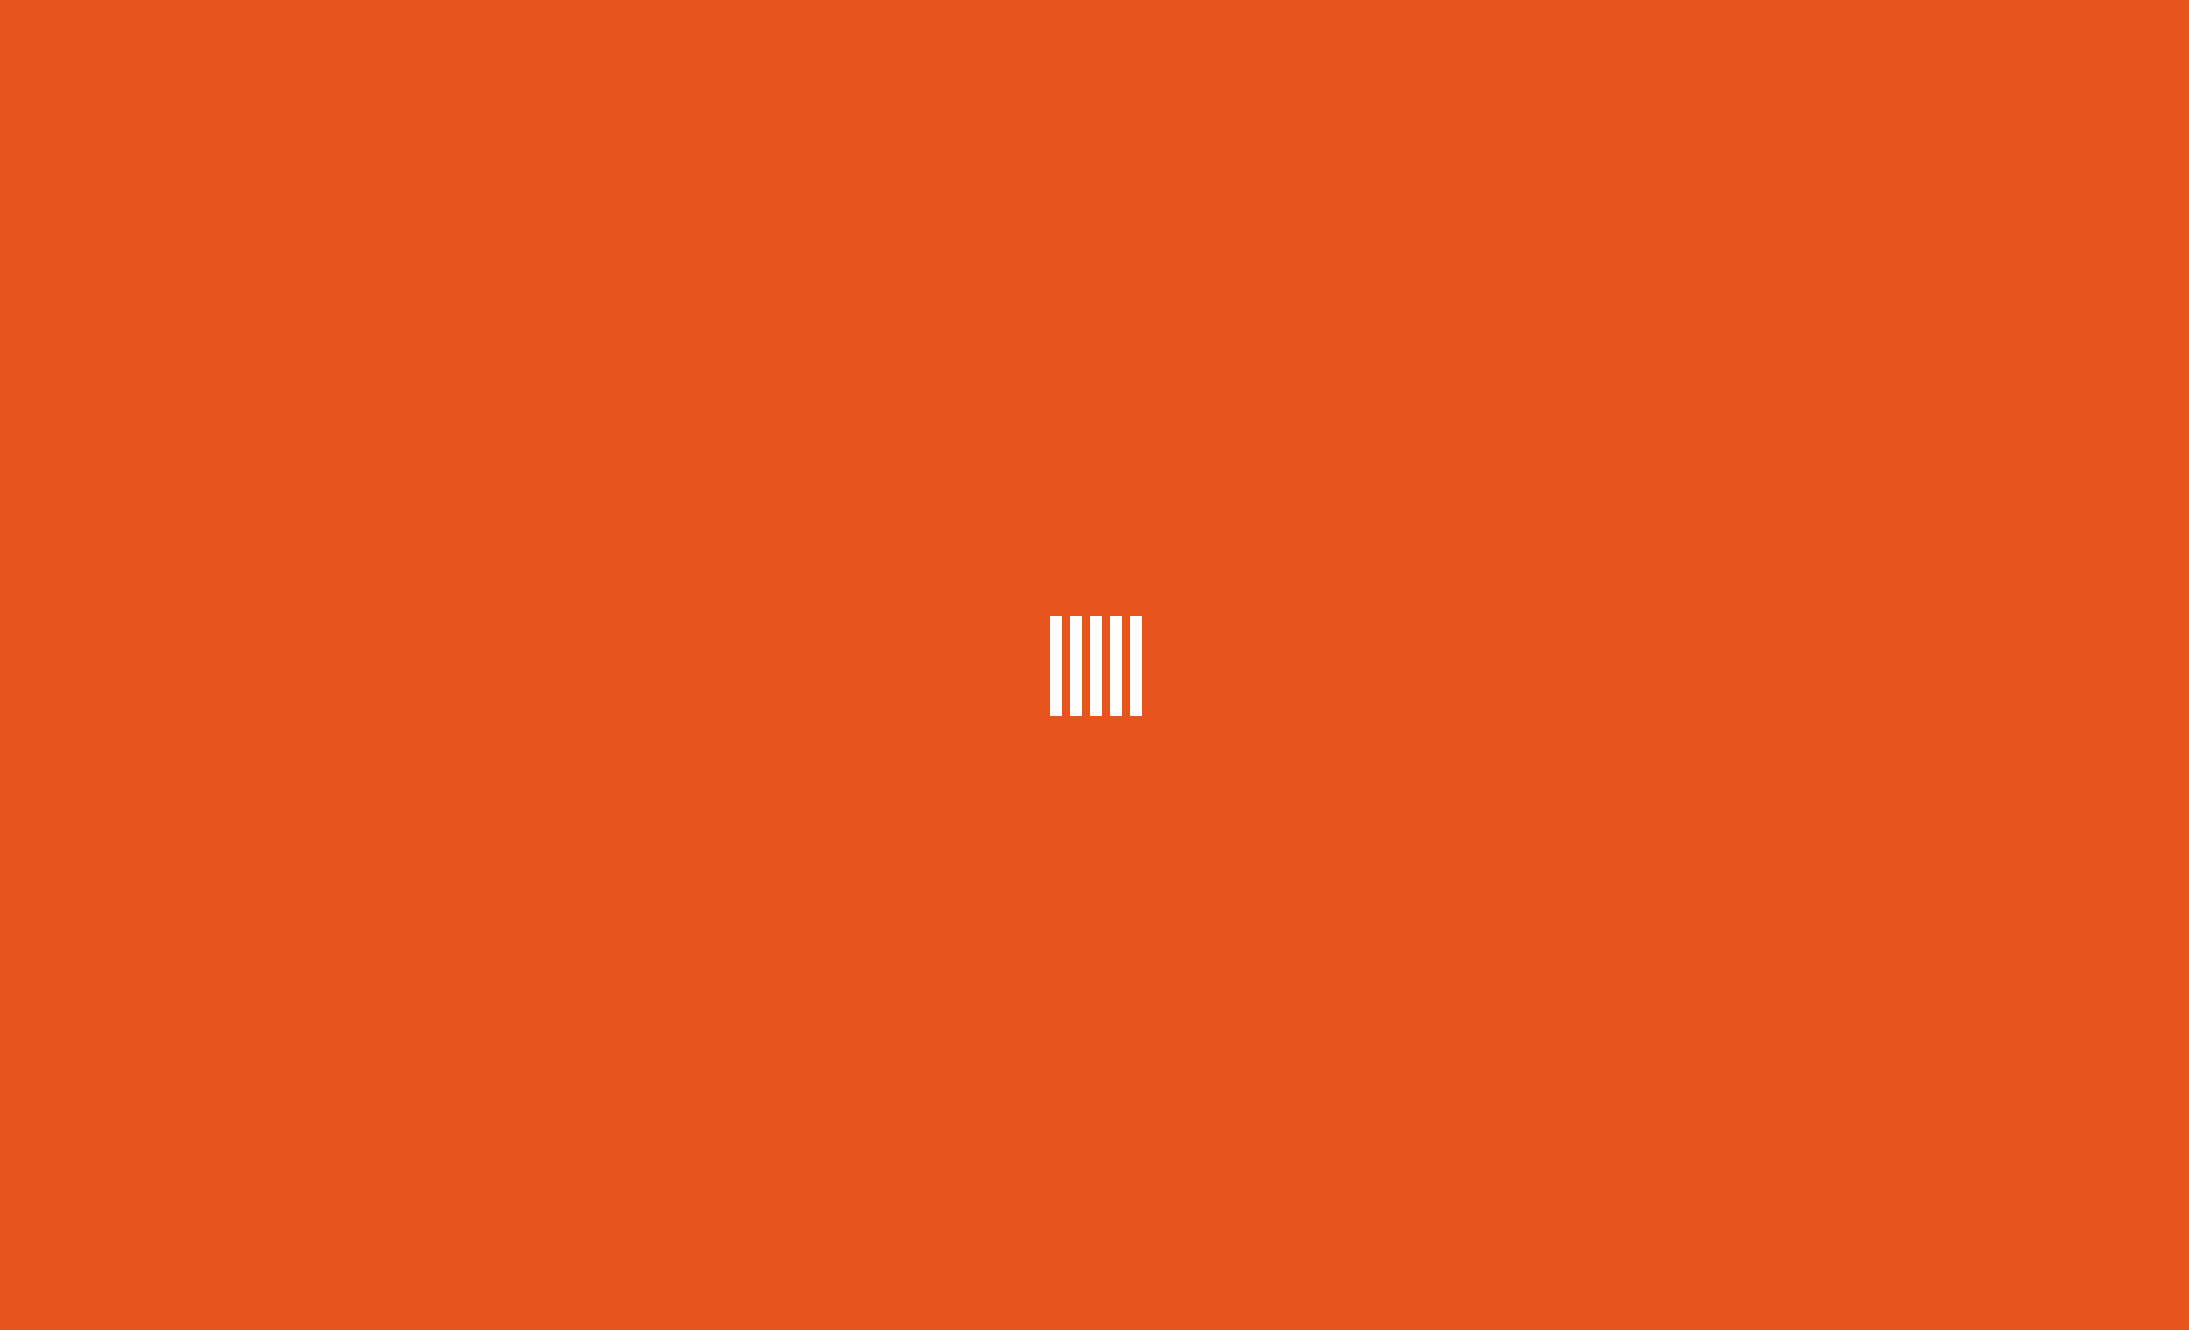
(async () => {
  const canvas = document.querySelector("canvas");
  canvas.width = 2189;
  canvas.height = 1330;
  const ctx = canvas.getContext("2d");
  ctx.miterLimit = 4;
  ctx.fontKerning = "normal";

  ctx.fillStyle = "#e8541e";
  ctx.fillRect(0, 0, 2189, 1330);
  for (const [x, y, w, h, color] of [
    [1050, 616, 12, 100, "#ffffff"],
    [1070, 616, 12, 100, "#ffffff"],
    [1090, 616, 12, 100, "#ffffff"],
    [1110, 616, 12, 100, "#ffffff"],
    [1130, 616, 12, 100, "#ffffff"],
  ]) {
    ctx.fillStyle = color;
    ctx.fillRect(x, y, w, h);
  }
})();
